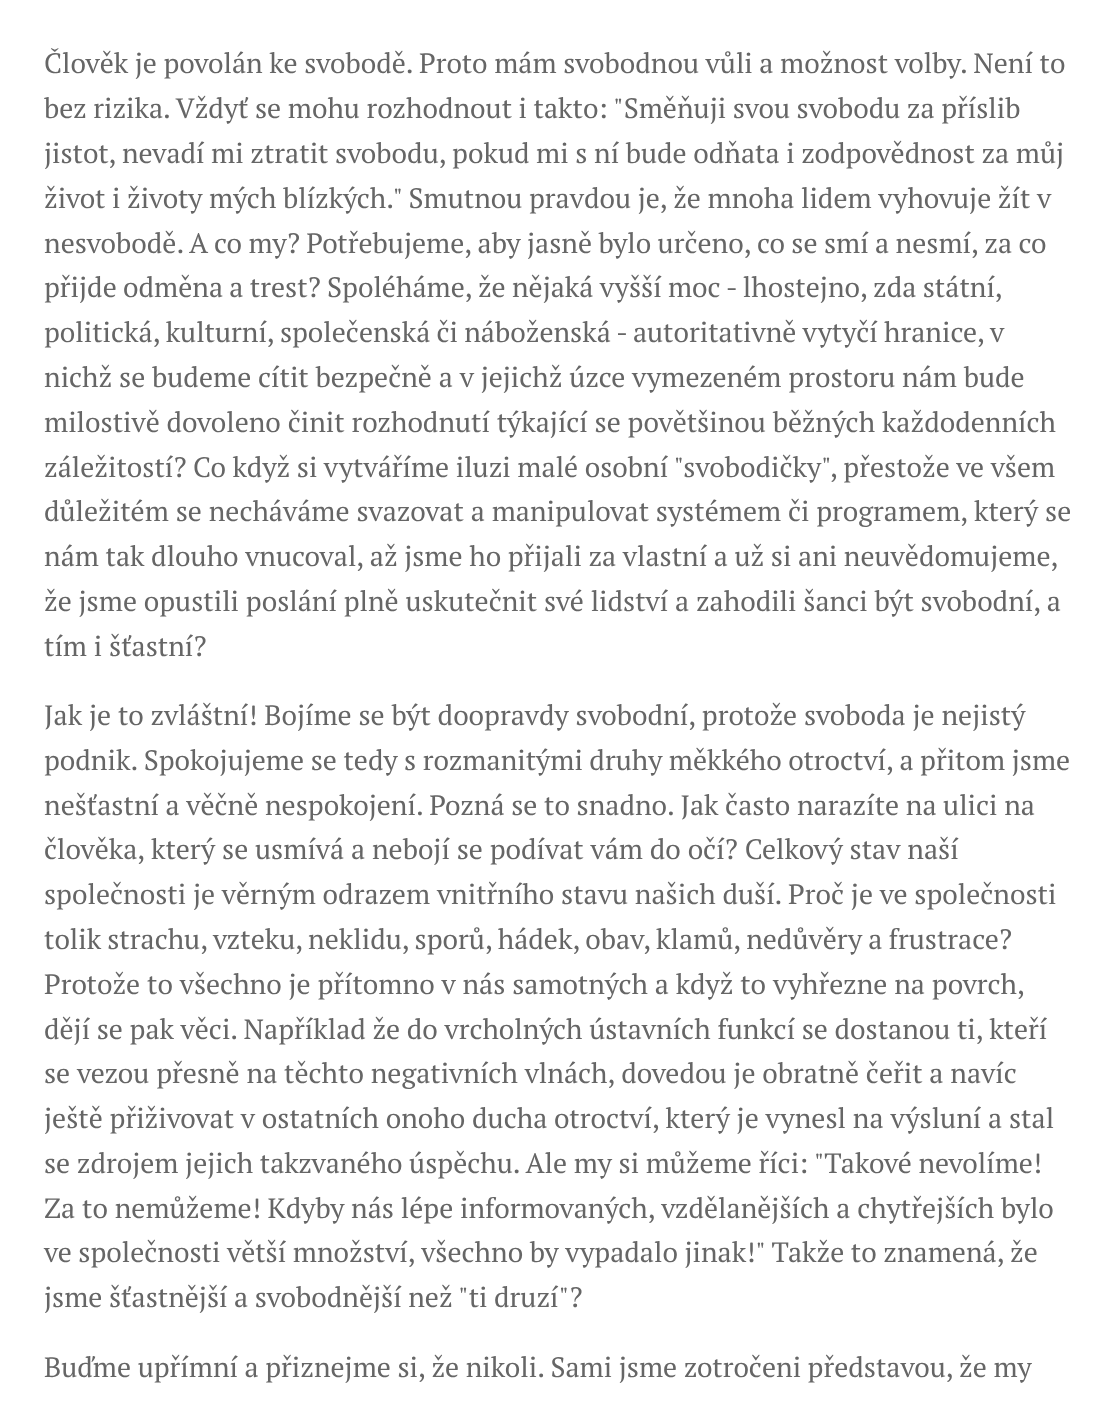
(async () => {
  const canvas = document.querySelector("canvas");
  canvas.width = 1118;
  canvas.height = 1412;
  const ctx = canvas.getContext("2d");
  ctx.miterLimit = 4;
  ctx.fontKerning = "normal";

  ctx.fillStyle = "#ffffff";
  ctx.fillRect(0, 0, 1118, 1412);
  ctx.wordSpacing = "-0.2px";
  ctx.font = "28px PT Serif";
  ctx.fillStyle = "#666666";
  ctx.fillText("Člověk je povolán ke svobodě. Proto mám svobodnou vůli a možnost volby. Není to", 44, 73);
  ctx.wordSpacing = "-0.25px";
  ctx.fillText("bez rizika. Vždyť se mohu rozhodnout i takto: \"Směňuji svou svobodu za příslib", 44, 118);
  ctx.wordSpacing = "-0.2px";
  ctx.fillText("jistot, nevadí mi ztratit svobodu, pokud mi s ní bude odňata i zodpovědnost za můj", 44, 163);
  ctx.fillText("život i životy mých blízkých.\" Smutnou pravdou je, že mnoha lidem vyhovuje žít v", 44, 208);
  ctx.wordSpacing = "-0.4px";
  ctx.fillText("nesvobodě. A co my? Potřebujeme, aby jasně bylo určeno, co se smí a nesmí, za co", 44, 253);
  ctx.wordSpacing = "-0.5px";
  ctx.fillText("přijde odměna a trest? Spoléháme, že nějaká vyšší moc - lhostejno, zda státní,", 44, 297);
  ctx.wordSpacing = "-0.6px";
  ctx.fillText("politická, kulturní, společenská či náboženská - autoritativně vytyčí hranice, v", 44, 342);
  ctx.wordSpacing = "0px";
  ctx.fillText("nichž se budeme cítit bezpečně a v jejichž úzce vymezeném prostoru nám bude", 44, 387);
  ctx.fillText("milostivě dovoleno činit rozhodnutí týkající se povětšinou běžných každodenních", 44, 432);
  ctx.wordSpacing = "-0.25px";
  ctx.fillText("záležitostí? Co když si vytváříme iluzi malé osobní \"svobodičky\", přestože ve všem", 44, 477);
  ctx.wordSpacing = "0px";
  ctx.fillText("důležitém se necháváme svazovat a manipulovat systémem či programem, který se", 44, 521);
  ctx.wordSpacing = "-0.2px";
  ctx.fillText("nám tak dlouho vnucoval, až jsme ho přijali za vlastní a už si ani neuvědomujeme,", 44, 566);
  ctx.wordSpacing = "0px";
  for (const [text, x, y] of [
    ["že jsme opustili poslání plně uskutečnit své lidství a zahodili šanci být svobodní, a", 44, 611],
    ["tím i šťastní?", 44, 656],
    ["Jak je to zvláštní! Bojíme se být doopravdy svobodní, protože svoboda je nejistý", 44, 725],
  ]) {
    ctx.fillText(text, x, y);
  }
  ctx.wordSpacing = "-0.25px";
  ctx.fillText("podnik. Spokojujeme se tedy s rozmanitými druhy měkkého otroctví, a přitom jsme", 44, 770);
  ctx.wordSpacing = "-0.2px";
  ctx.fillText("nešťastní a věčně nespokojení. Pozná se to snadno. Jak často narazíte na ulici na", 44, 815);
  ctx.wordSpacing = "0px";
  ctx.fillText("člověka, který se usmívá a nebojí se podívat vám do očí? Celkový stav naší", 44, 859);
  ctx.fillText("společnosti je věrným odrazem vnitřního stavu našich duší. Proč je ve společnosti", 44, 904);
  ctx.wordSpacing = "-0.75px";
  ctx.fillText("tolik strachu, vzteku, neklidu, sporů, hádek, obav, klamů, nedůvěry a frustrace?", 44, 949);
  ctx.wordSpacing = "0px";
  ctx.fillText("Protože to všechno je přítomno v nás samotných a když to vyhřezne na povrch,", 44, 994);
  ctx.wordSpacing = "-0.2px";
  ctx.fillText("dějí se pak věci. Například že do vrcholných ústavních funkcí se dostanou ti, kteří", 44, 1039);
  ctx.wordSpacing = "0px";
  ctx.fillText("se vezou přesně na těchto negativních vlnách, dovedou je obratně čeřit a navíc", 44, 1083);
  ctx.fillText("ještě přiživovat v ostatních onoho ducha otroctví, který je vynesl na výsluní a stal", 44, 1128);
  ctx.wordSpacing = "-0.25px";
  ctx.fillText("se zdrojem jejich takzvaného úspěchu. Ale my si můžeme říci: \"Takové nevolíme!", 44, 1173);
  ctx.wordSpacing = "0px";
  ctx.fillText("Za to nemůžeme! Kdyby nás lépe informovaných, vzdělanějších a chytřejších bylo", 44, 1218);
  ctx.wordSpacing = "-0.25px";
  for (const [text, x, y] of [
    ["ve společnosti větší množství, všechno by vypadalo jinak!\" Takže to znamená, že", 44, 1262],
    ["jsme šťastnější a svobodnější než \"ti druzí\"?", 44, 1307],
    ["Buďme upřímní a přiznejme si, že nikoli. Sami jsme zotročeni představou, že my", 44, 1377],
  ]) {
    ctx.fillText(text, x, y);
  }
})();
